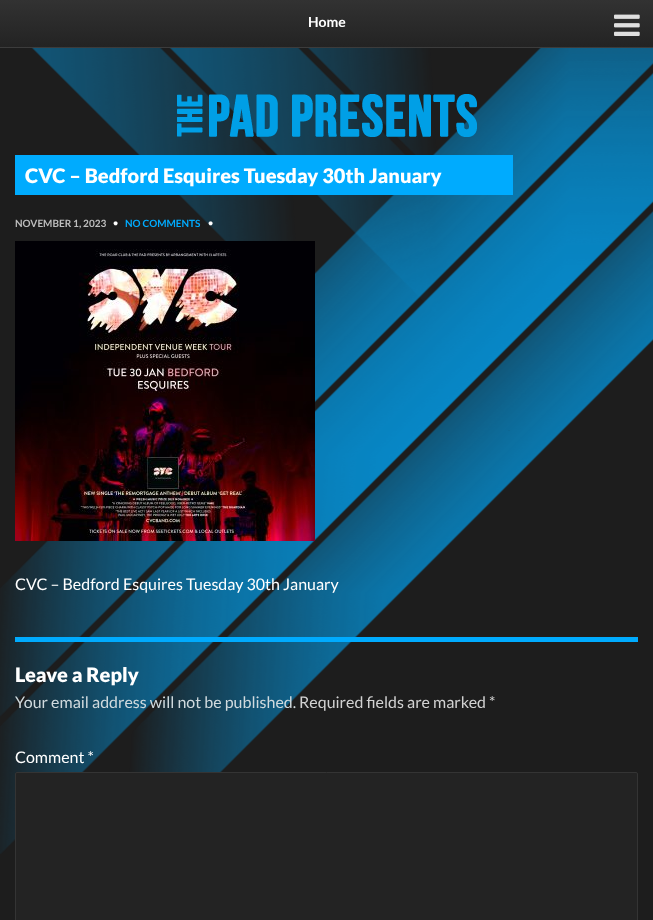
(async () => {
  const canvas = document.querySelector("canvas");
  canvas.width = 653;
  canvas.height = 920;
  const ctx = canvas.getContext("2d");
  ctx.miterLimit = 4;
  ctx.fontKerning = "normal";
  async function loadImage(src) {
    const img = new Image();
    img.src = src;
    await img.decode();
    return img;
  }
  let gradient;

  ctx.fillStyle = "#1d1d1d";
  ctx.fillRect(0, 0, 653, 920);
  ctx.drawImage(await loadImage("img/1.png"), 0, 48, 653, 806);
  gradient = ctx.createLinearGradient(327, 0, 327, 47);
  gradient.addColorStop(0, "#323232");
  gradient.addColorStop(1, "#232323");
  ctx.fillStyle = gradient;
  ctx.fillRect(0, 0, 653, 47);
  ctx.fillStyle = "#3c3c3c";
  ctx.fillRect(0, 47, 653, 1);
  ctx.drawImage(await loadImage("img/2.png"), 614, 14, 26, 22);
  ctx.drawImage(await loadImage("img/3.png"), 177, 94, 300, 43);
  ctx.fillStyle = "#00abfe";
  ctx.fillRect(15, 155, 498, 40);
  ctx.drawImage(await loadImage("img/4.png"), 15, 241, 300, 300);
  ctx.fillRect(15, 637, 623, 5);
  ctx.fillStyle = "#232323";
  ctx.beginPath();
  ctx.roundRect(15.5, 772.5, 622, 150, 1.5);
  ctx.fill();
  ctx.strokeStyle = "#343434";
  ctx.stroke();
  ctx.font = "bold 14px Lato";
  ctx.fillStyle = "#ffffff";
  ctx.fillText("Home", 308, 27);
  ctx.font = "900 20px Lato";
  ctx.fillText("CVC – Bedford Esquires Tuesday 30th January", 25, 183);
  ctx.font = "bold 10px Lato";
  ctx.fillStyle = "#bebebe";
  ctx.fillText("NOVEMBER 1, 2023", 15, 227);
  ctx.font = "bold 9px Lato";
  ctx.fillStyle = "#ffffff";
  ctx.fillText("•", 113, 226);
  ctx.font = "bold 10px Lato";
  ctx.fillStyle = "#00abfe";
  ctx.fillText("NO COMMENTS", 125, 227);
  ctx.font = "bold 9px Lato";
  ctx.fillStyle = "#ffffff";
  ctx.fillText("•", 208, 226);
  ctx.font = "16px Lato";
  ctx.fillText("CVC – Bedford Esquires Tuesday 30th January", 15, 590);
  ctx.font = "900 20px Lato";
  ctx.fillText("Leave a Reply", 15, 682);
  ctx.font = "16px Lato";
  ctx.fillStyle = "#d0dade";
  ctx.fillText("Your email address will not be published.", 15, 708);
  ctx.fillStyle = "#d2d2d2";
  ctx.fillText("Required fields are marked *", 299, 708);
  ctx.fillStyle = "#ffffff";
  ctx.fillText("Comment *", 15, 763);
})();
